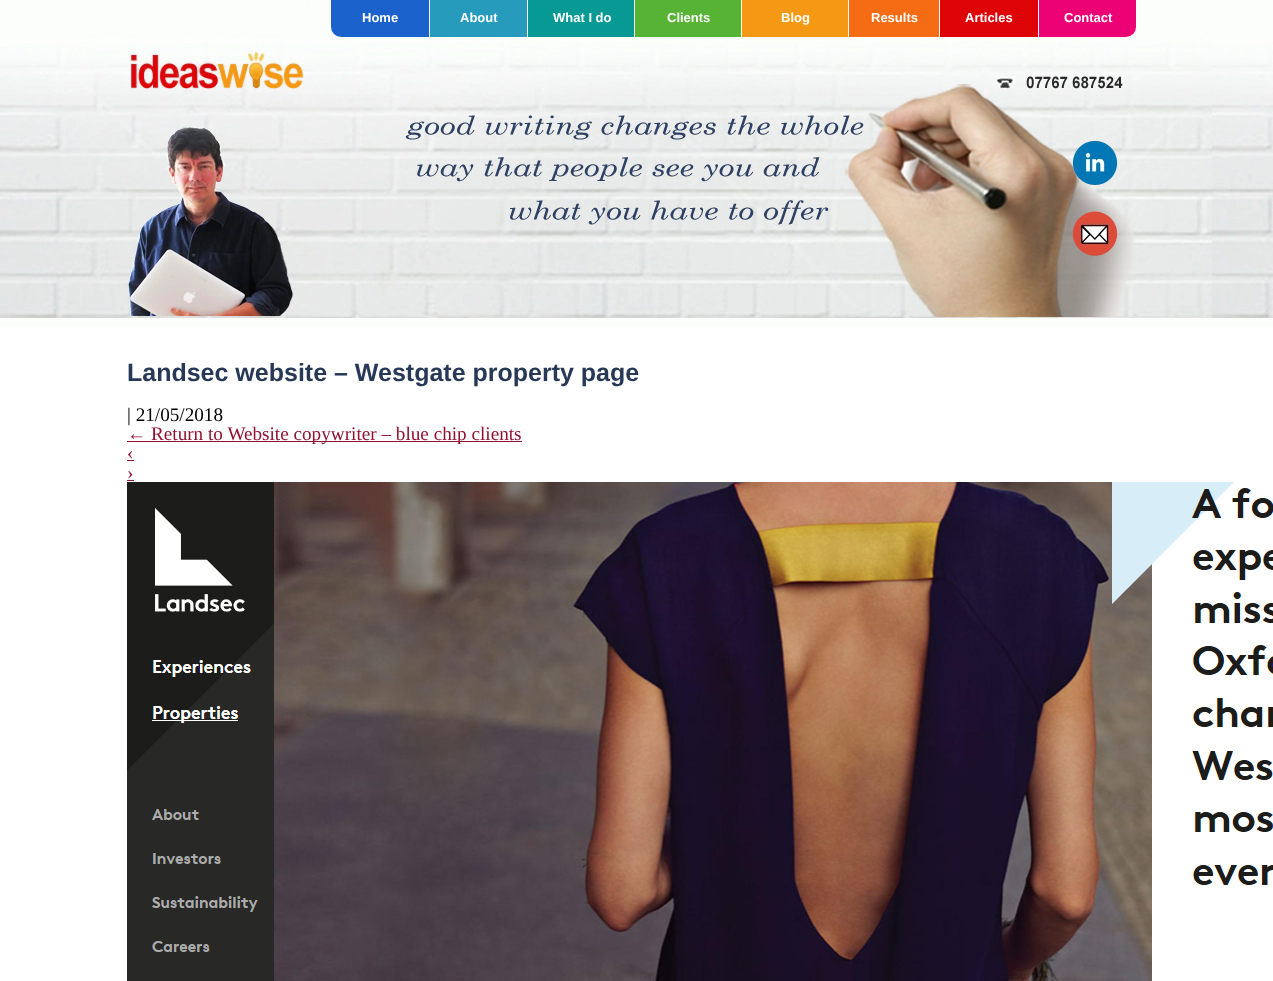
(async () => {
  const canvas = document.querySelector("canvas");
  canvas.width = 1273;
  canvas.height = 981;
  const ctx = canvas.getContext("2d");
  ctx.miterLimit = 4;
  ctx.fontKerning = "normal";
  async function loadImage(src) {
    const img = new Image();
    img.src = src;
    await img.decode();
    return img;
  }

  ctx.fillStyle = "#ffffff";
  ctx.fillRect(0, 0, 1273, 981);
  ctx.drawImage(await loadImage("img/1.png"), 0, 0, 1273, 326);
  ctx.fillStyle = "#1b62cc";
  ctx.beginPath();
  ctx.roundRect(331, 0, 98, 37, [0, 0, 0, 10]);
  ctx.fill();
  for (const [x, y, w, h, color] of [
    [430, 0, 97, 37, "#269bbc"],
    [528, 0, 106, 37, "#079a94"],
    [635, 0, 106, 37, "#57b334"],
    [742, 0, 106, 37, "#f59914"],
    [849, 0, 90, 37, "#f66c14"],
    [940, 0, 98, 37, "#de0307"],
  ]) {
    ctx.fillStyle = color;
    ctx.fillRect(x, y, w, h);
  }
  ctx.fillStyle = "#ec0275";
  ctx.beginPath();
  ctx.roundRect(1039, 0, 97, 37, [0, 0, 10, 0]);
  ctx.fill();
  ctx.drawImage(await loadImage("img/2.png"), 130, 50, 174, 40);
  ctx.drawImage(await loadImage("img/7.png"), 405, 84, 732, 233);
  ctx.drawImage(await loadImage("img/3.png"), 995, 76, 128, 13);
  ctx.drawImage(await loadImage("img/4.png"), 1072, 140, 46, 45);
  ctx.drawImage(await loadImage("img/5.png"), 1072, 211, 46, 45);
  ctx.drawImage(await loadImage("img/6.png"), 128, 126, 165, 190);
  for (const [x, y, w, h, color] of [
    [127, 441, 395, 1, "#911131"],
    [127, 460, 7, 1, "#911131"],
    [127, 480, 7, 1, "#911131"],
  ]) {
    ctx.fillStyle = color;
    ctx.fillRect(x, y, w, h);
  }
  ctx.drawImage(await loadImage("img/8.png"), 127, 482, 1146, 499);
  ctx.font = "bold 13px Liberation Sans";
  ctx.fillStyle = "#ffffff";
  for (const [text, x, y] of [
    ["Home", 362, 22],
    ["About", 460, 22],
    ["What I do", 553, 22],
    ["Clients", 667, 22],
    ["Blog", 781, 22],
    ["Results", 871, 22],
    ["Articles", 965, 22],
    ["Contact", 1064, 22],
  ]) {
    ctx.fillText(text, x, y);
  }
  ctx.font = "bold 25px Liberation Sans";
  ctx.fillStyle = "#273957";
  ctx.fillText("Landsec website – Westgate property page", 127, 381);
  ctx.font = "19.2px Liberation Serif";
  ctx.fillStyle = "#000000";
  ctx.fillText("| 21/05/2018", 127, 421);
  ctx.fillStyle = "#911131";
  for (const [text, x, y] of [
    ["← Return to Website copywriter – blue chip clients", 127, 440],
    ["‹", 127, 459],
    ["›", 127, 479],
  ]) {
    ctx.fillText(text, x, y);
  }
})();
